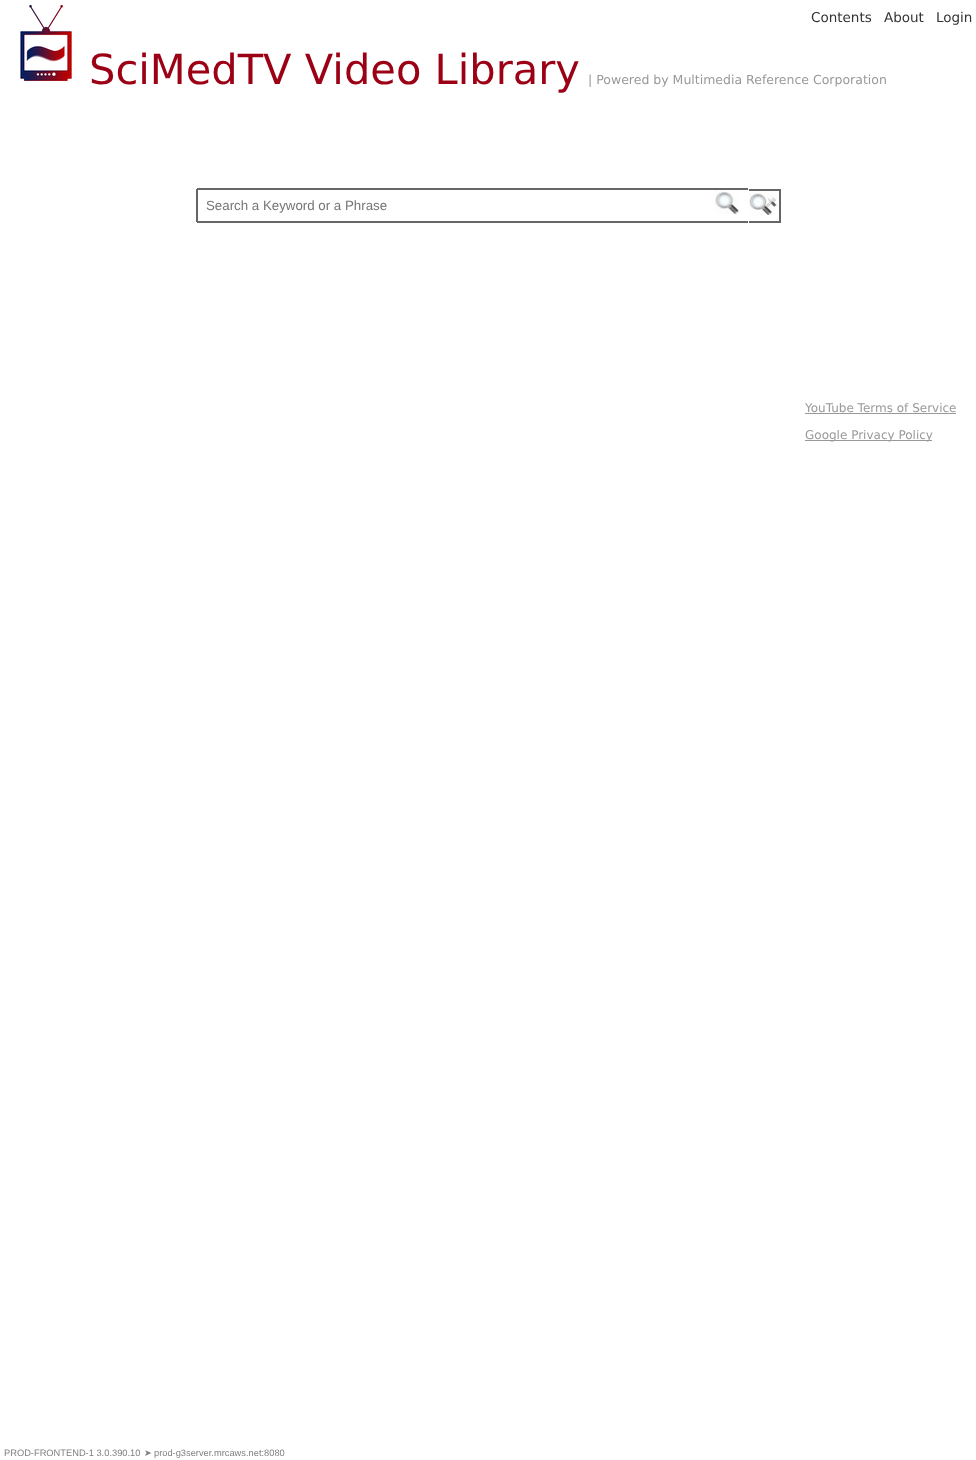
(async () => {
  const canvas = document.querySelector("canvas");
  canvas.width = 976;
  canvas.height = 1460;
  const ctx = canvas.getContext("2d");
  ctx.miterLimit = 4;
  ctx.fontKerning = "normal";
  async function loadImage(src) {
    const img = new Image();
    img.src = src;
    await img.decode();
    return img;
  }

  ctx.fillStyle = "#ffffff";
  ctx.fillRect(0, 0, 976, 1460);
  ctx.drawImage(await loadImage("img/1.png"), 20, 5, 52, 76);
  for (const [x, y, w, h, color] of [
    [197, 188, 551, 2, "#666666"],
    [197, 221, 551, 2, "#666666"],
    [196, 189, 2, 33, "#666666"],
  ]) {
    ctx.fillStyle = color;
    ctx.fillRect(x, y, w, h);
  }
  ctx.drawImage(await loadImage("img/2.png"), 714, 190, 25, 24);
  for (const [x, y, w, h, color] of [
    [749, 189, 32, 2, "#666666"],
    [779, 189, 2, 34, "#666666"],
    [749, 221, 32, 2, "#666666"],
  ]) {
    ctx.fillStyle = color;
    ctx.fillRect(x, y, w, h);
  }
  ctx.drawImage(await loadImage("img/3.png"), 749, 193, 28, 22);
  ctx.fillStyle = "#999999";
  ctx.fillRect(805, 413, 151, 1);
  ctx.fillRect(805, 440, 127, 1);
  ctx.font = "13.5px DejaVu Sans";
  ctx.fillStyle = "#333333";
  for (const [text, x, y] of [
    ["Contents", 811, 22],
    ["About", 884, 22],
    ["Login", 936, 22],
  ]) {
    ctx.fillText(text, x, y);
  }
  ctx.font = "41.6px DejaVu Sans";
  ctx.fillStyle = "#9b0015";
  ctx.fillText("SciMedTV Video Library", 89, 84);
  ctx.font = "12.5px DejaVu Sans";
  ctx.fillStyle = "#999999";
  ctx.fillText("| Powered by Multimedia Reference Corporation", 588, 84);
  ctx.font = "13.3px Liberation Sans";
  ctx.fillStyle = "#757575";
  ctx.fillText("Search a Keyword or a Phrase", 206, 210);
  ctx.font = "12px DejaVu Sans";
  ctx.fillStyle = "#999999";
  ctx.fillText("YouTube Terms of Service", 805, 412);
  ctx.fillText("Google Privacy Policy", 805, 439);
  ctx.font = "9.3px Liberation Sans";
  ctx.fillStyle = "#808080";
  ctx.fillText("PROD-FRONTEND-1 3.0.390.10", 4, 1456);
  ctx.font = "9.3px DejaVu Sans";
  ctx.fillText("➤", 144, 1456);
  ctx.font = "9.3px Liberation Sans";
  ctx.fillText("prod-g3server.mrcaws.net:8080", 154, 1456);
})();
